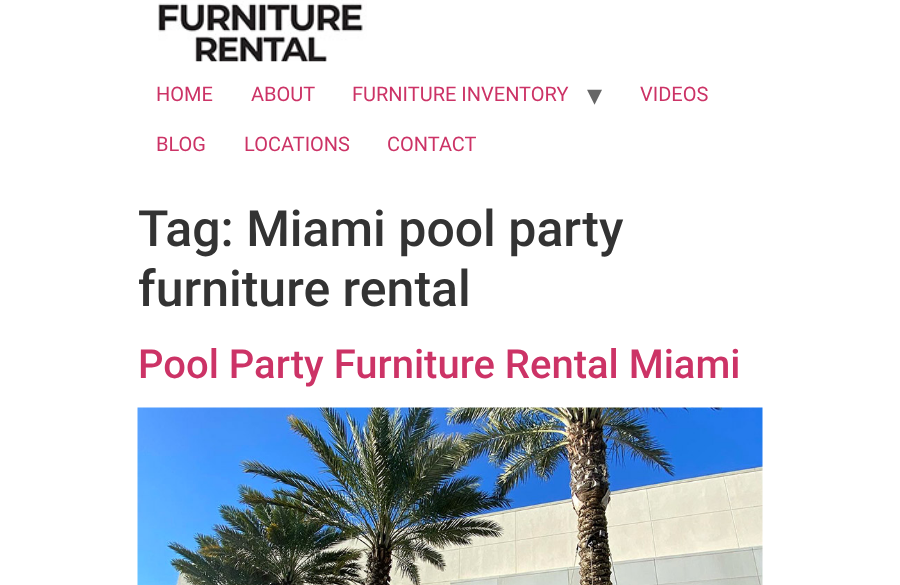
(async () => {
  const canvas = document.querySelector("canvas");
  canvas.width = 900;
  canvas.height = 585;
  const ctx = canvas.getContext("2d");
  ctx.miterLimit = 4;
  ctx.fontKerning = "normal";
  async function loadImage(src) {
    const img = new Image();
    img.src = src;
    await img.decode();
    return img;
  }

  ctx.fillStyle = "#ffffff";
  ctx.fillRect(0, 0, 900, 585);
  ctx.drawImage(await loadImage("img/1.png"), 158, 0, 209, 62);
  ctx.drawImage(await loadImage("img/2.png"), 137, 407, 626, 178);
  ctx.font = "20px Roboto";
  ctx.fillStyle = "#cc3366";
  for (const [text, x, y] of [
    ["HOME", 156, 101],
    ["ABOUT", 251, 101],
    ["FURNITURE INVENTORY", 352, 101],
  ]) {
    ctx.fillText(text, x, y);
  }
  ctx.font = "30px DejaVu Sans";
  ctx.fillStyle = "#666666";
  ctx.fillText("▾", 587, 105);
  ctx.font = "20px Roboto";
  ctx.fillStyle = "#cc3366";
  for (const [text, x, y] of [
    ["VIDEOS", 640, 101],
    ["BLOG", 156, 151],
    ["LOCATIONS", 244, 151],
    ["CONTACT", 387, 151],
  ]) {
    ctx.fillText(text, x, y);
  }
  ctx.font = "500 50px Roboto";
  ctx.fillStyle = "#333333";
  ctx.fillText("Tag: Miami pool party", 138, 246);
  ctx.fillText("furniture rental", 138, 306);
  ctx.font = "500 40px Roboto";
  ctx.fillStyle = "#cc3366";
  ctx.fillText("Pool Party Furniture Rental Miami", 138, 378);
})();
